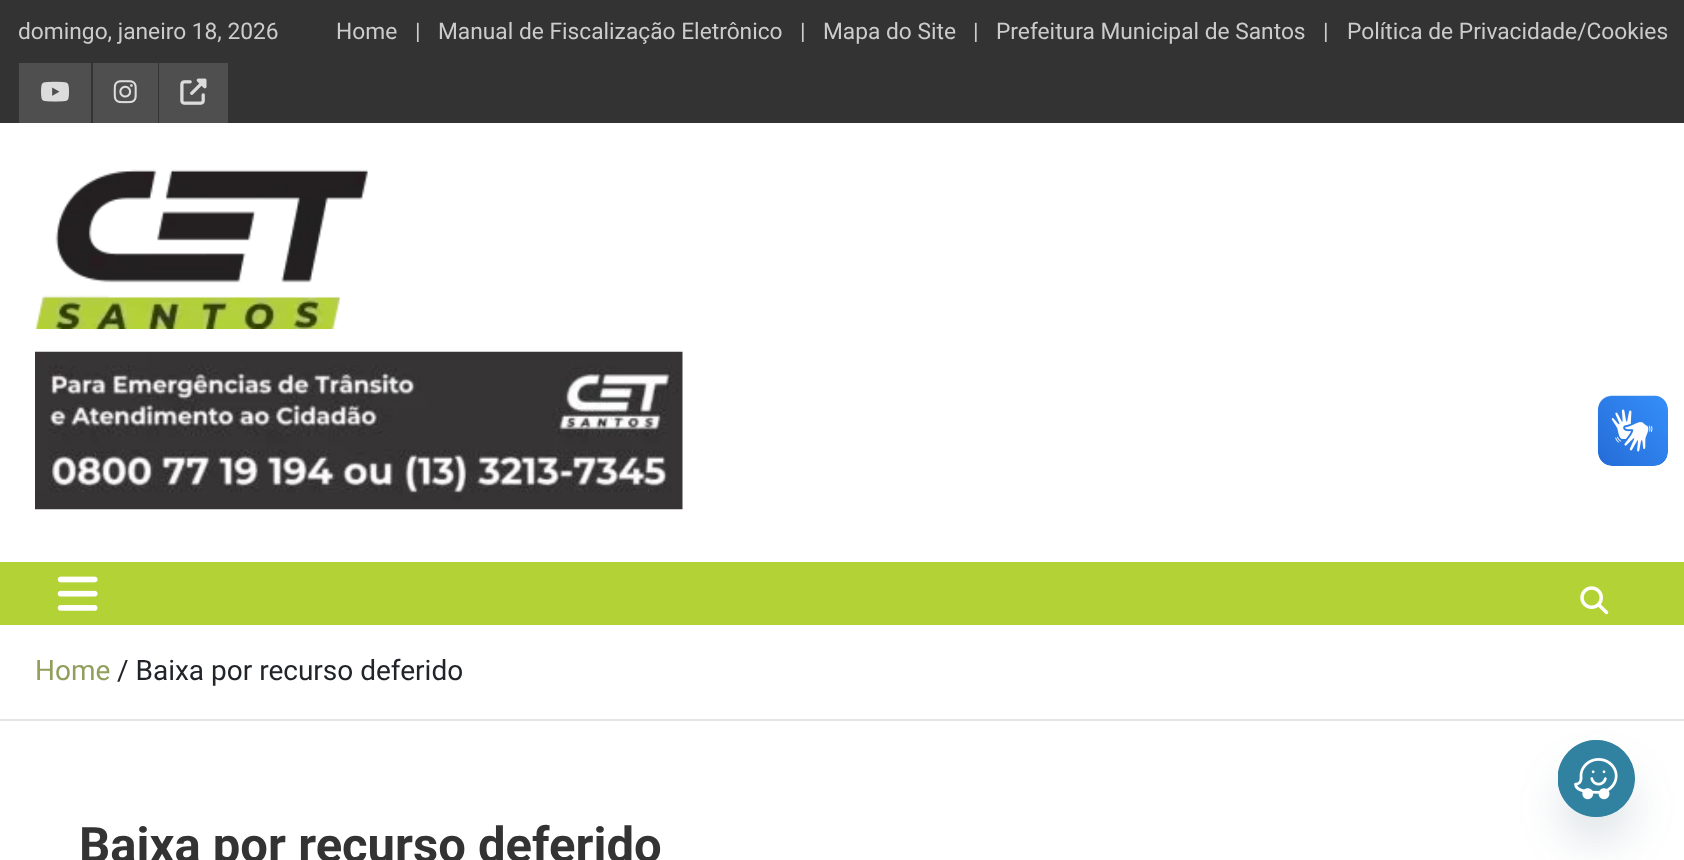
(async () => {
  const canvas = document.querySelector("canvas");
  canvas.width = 1684;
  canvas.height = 860;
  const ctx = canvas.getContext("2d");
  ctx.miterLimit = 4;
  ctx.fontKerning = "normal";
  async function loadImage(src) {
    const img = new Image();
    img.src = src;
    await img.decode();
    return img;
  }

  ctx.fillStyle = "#ffffff";
  ctx.fillRect(0, 0, 1684, 860);
  ctx.fillStyle = "#333333";
  ctx.fillRect(0, 0, 1684, 123);
  ctx.fillStyle = "#4f4f4f";
  ctx.fillRect(19, 63, 72, 60);
  ctx.drawImage(await loadImage("img/1.png"), 41, 81, 28, 21);
  ctx.fillRect(93, 63, 65, 60);
  ctx.drawImage(await loadImage("img/2.png"), 113, 80, 24, 24);
  ctx.fillRect(159, 63, 69, 60);
  ctx.drawImage(await loadImage("img/3.png"), 180, 78, 27, 27);
  ctx.drawImage(await loadImage("img/4.png"), 35, 169, 333, 160);
  ctx.drawImage(await loadImage("img/5.png"), 35, 351, 648, 159);
  ctx.fillStyle = "#b2d235";
  ctx.fillRect(0, 562, 1684, 63);
  ctx.drawImage(await loadImage("img/6.png"), 57, 576, 41, 35);
  ctx.drawImage(await loadImage("img/7.png"), 1580, 586, 29, 29);
  ctx.fillStyle = "#e6e6e6";
  ctx.fillRect(0, 719, 1684, 2);
  ctx.drawImage(await loadImage("img/8.png"), 1597, 395, 71, 71);
  ctx.drawImage(await loadImage("img/9.png"), 1598, 396, 70, 70);
  ctx.fillStyle = "rgba(73, 104, 126, 0.16)";
  ctx.filter = "blur(21px)";
  ctx.beginPath();
  ctx.roundRect(1558, 768, 77, 77, 38.5);
  ctx.fill();
  ctx.filter = "none";
  ctx.fillStyle = "#3182a0";
  ctx.beginPath();
  ctx.arc(1596.5, 778.5, 38.5, 0, Math.PI * 2);
  ctx.fill();
  ctx.drawImage(await loadImage("img/10.png"), 1558, 740, 77, 77);
  ctx.font = "22.75px Roboto";
  ctx.fillStyle = "#cccccc";
  for (const [text, x, y] of [
    ["domingo, janeiro 18, 2026", 18, 39],
    ["Home", 336, 39],
    ["|", 415, 39],
    ["Manual de Fiscalização Eletrônico", 438, 39],
    ["|", 800, 39],
    ["Mapa do Site", 823, 39],
    ["|", 973, 39],
    ["Prefeitura Municipal de Santos", 996, 39],
    ["|", 1323, 39],
    ["Política de Privacidade/Cookies", 1347, 39],
  ]) {
    ctx.fillText(text, x, y);
  }
  ctx.font = "28px Roboto";
  ctx.fillStyle = "#919e5c";
  ctx.fillText("Home", 35, 680);
  ctx.fillStyle = "#212529";
  ctx.fillText("/ Baixa por recurso deferido", 117, 680);
  ctx.font = "bold 49px Roboto";
  ctx.fillStyle = "#333333";
  ctx.fillText("Baixa por recurso deferido", 79, 862);
})();
